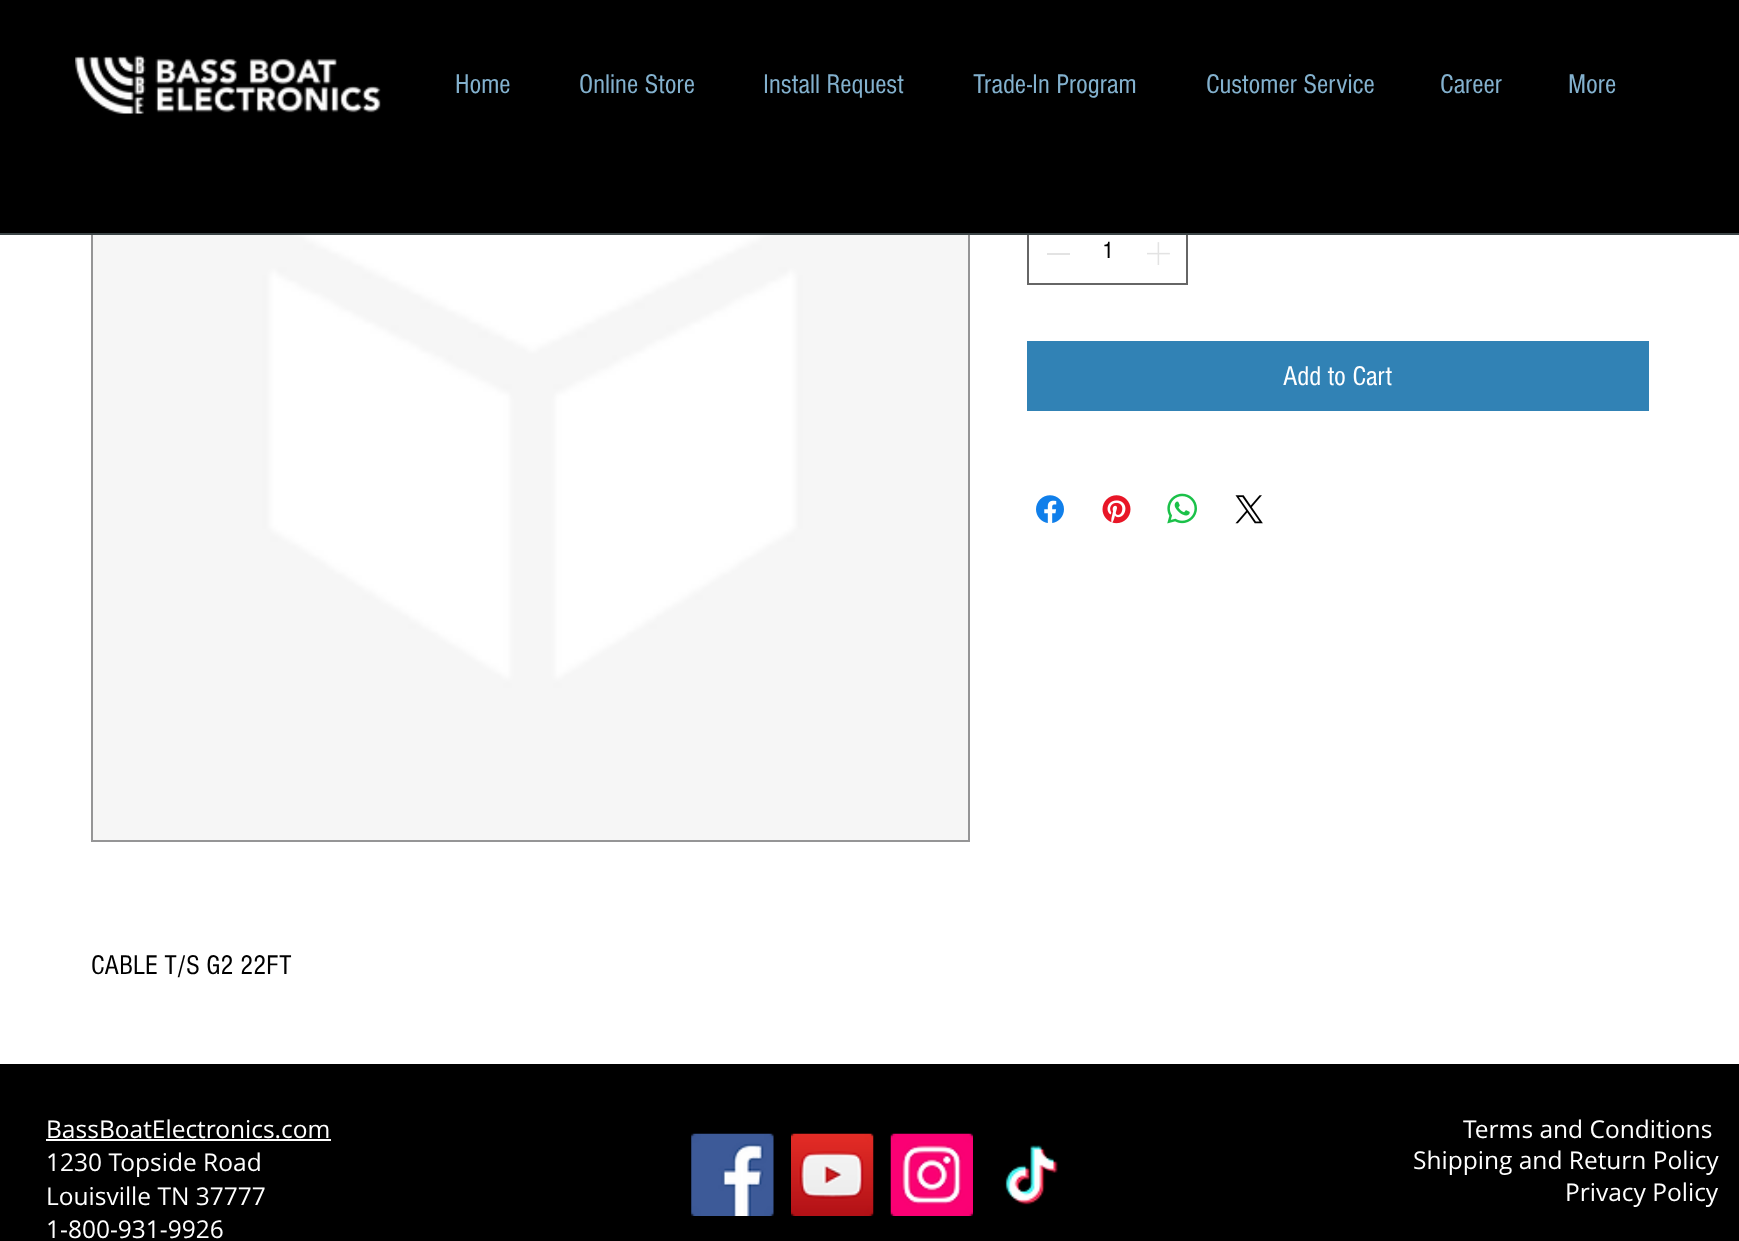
(async () => {
  const canvas = document.querySelector("canvas");
  canvas.width = 1739;
  canvas.height = 1241;
  const ctx = canvas.getContext("2d");
  ctx.miterLimit = 4;
  ctx.fontKerning = "normal";
  async function loadImage(src) {
    const img = new Image();
    img.src = src;
    await img.decode();
    return img;
  }

  ctx.fillStyle = "#ffffff";
  ctx.fillRect(0, 0, 1739, 1241);
  ctx.strokeStyle = "#666666";
  ctx.lineWidth = 2;
  ctx.strokeRect(1028, 222, 159, 62);
  ctx.strokeStyle = "#959596";
  ctx.strokeRect(92, -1, 877, 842);
  ctx.fillStyle = "#000000";
  ctx.fillRect(0, 0, 1739, 233);
  ctx.fillStyle = "#3c4547";
  ctx.fillRect(0, 233, 1739, 2);
  ctx.drawImage(await loadImage("img/1.png"), 75, 55, 306, 59);
  ctx.fillStyle = "#e3e3e3";
  ctx.fillRect(1047, 253, 23, 2);
  ctx.drawImage(await loadImage("img/2.png"), 1147, 242, 23, 23);
  ctx.fillStyle = "#3182b5";
  ctx.fillRect(1027, 341, 622, 70);
  ctx.drawImage(await loadImage("img/3.png"), 1036, 495, 28, 28);
  ctx.drawImage(await loadImage("img/4.png"), 1102, 495, 29, 29);
  ctx.drawImage(await loadImage("img/5.png"), 1167, 493, 30, 31);
  ctx.drawImage(await loadImage("img/6.png"), 1235, 495, 28, 29);
  ctx.drawImage(await loadImage("img/7.png"), 93, 235, 875, 605);
  ctx.fillStyle = "#000000";
  ctx.fillRect(0, 1064, 1739, 177);
  ctx.fillStyle = "#ffffff";
  ctx.fillRect(46, 1139, 285, 2);
  ctx.drawImage(await loadImage("img/8.png"), 691, 1133, 83, 83);
  ctx.drawImage(await loadImage("img/9.png"), 791, 1133, 83, 83);
  ctx.drawImage(await loadImage("img/10.png"), 890, 1133, 83, 83);
  ctx.drawImage(await loadImage("img/11.png"), 1005, 1145, 53, 60);
  ctx.font = "28px 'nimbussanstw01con'";
  ctx.fillStyle = "#83b1ce";
  for (const [text, x, y] of [
    ["Home", 455, 93],
    ["Online Store", 579, 93],
    ["Install Request", 763, 93],
    ["Trade-In Program", 973, 93],
    ["Customer Service", 1206, 93],
    ["Career", 1440, 93],
    ["More", 1568, 93],
  ]) {
    ctx.fillText(text, x, y);
  }
  ctx.font = "24.5px 'nimbussanstw01con'";
  ctx.fillStyle = "#000000";
  ctx.fillText("1", 1102, 258);
  ctx.font = "28px 'nimbussanstw01con'";
  ctx.fillStyle = "#ffffff";
  ctx.fillText("Add to Cart", 1283, 385);
  ctx.fillStyle = "#000000";
  ctx.fillText("CABLE T/S G2 22FT", 91, 974);
  ctx.font = "24.5px Open Sans";
  ctx.fillStyle = "#ffffff";
  for (const [text, x, y] of [
    ["BassBoatElectronics.com", 46, 1138],
    ["1230 Topside Road", 46, 1171],
    ["Louisville TN 37777", 46, 1205],
    ["1-800-931-9926", 46, 1238],
    ["Terms and Conditions", 1463, 1138],
    ["Shipping and Return Policy", 1413, 1169],
    ["Privacy Policy", 1565, 1201],
  ]) {
    ctx.fillText(text, x, y);
  }
})();
